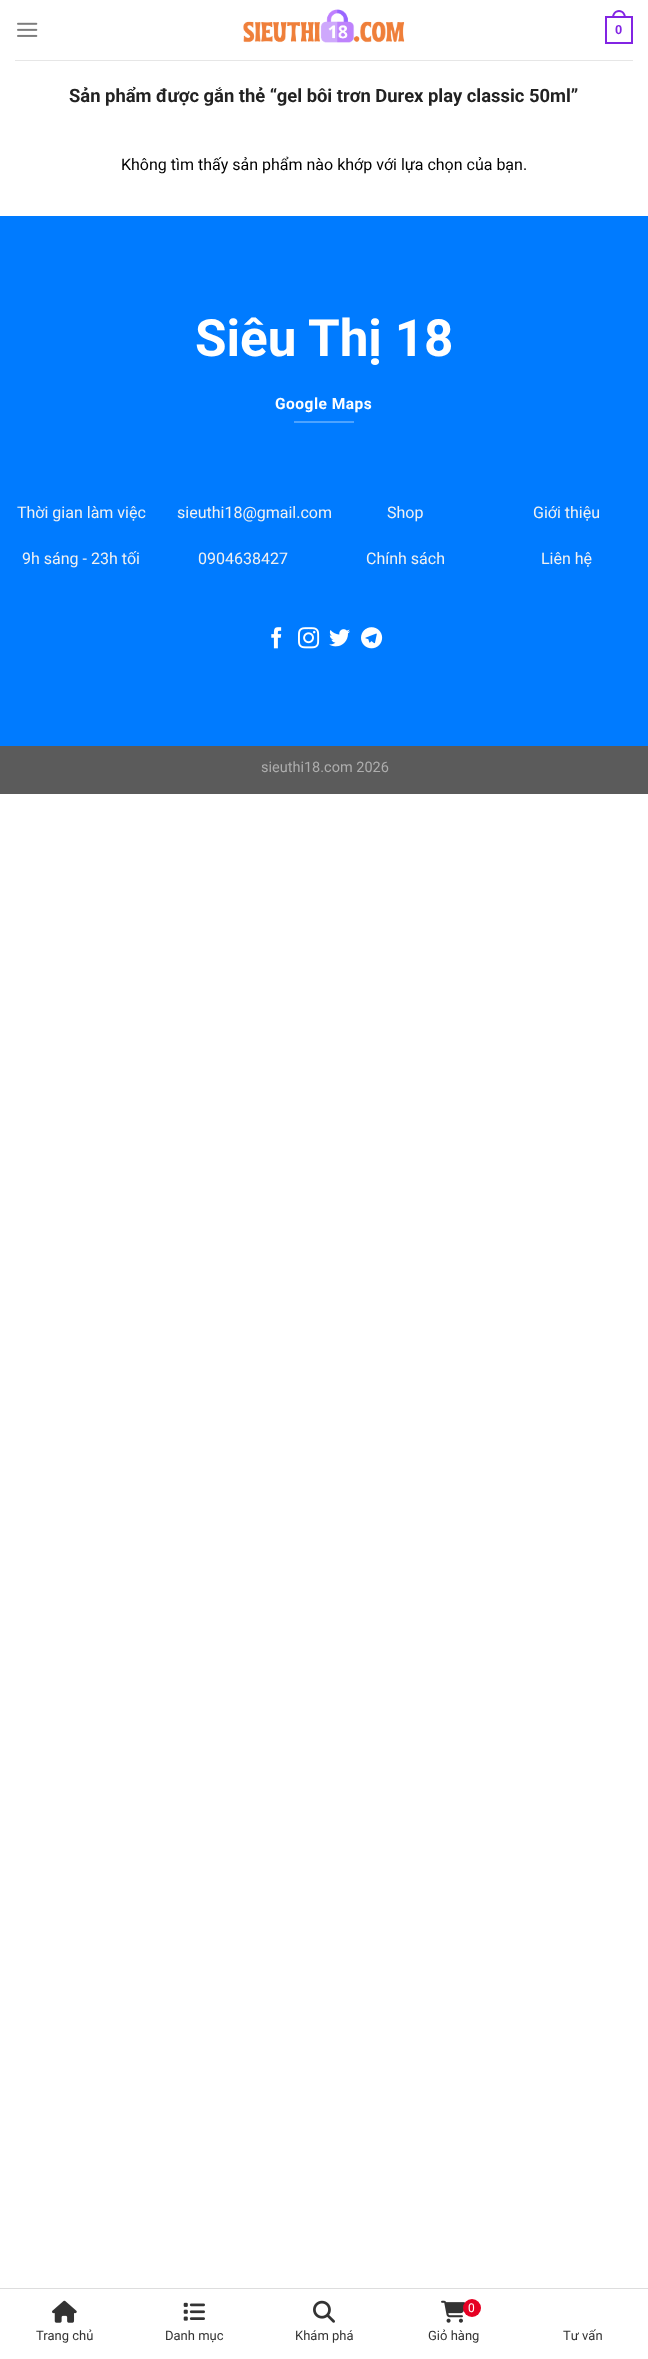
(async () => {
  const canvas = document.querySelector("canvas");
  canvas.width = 648;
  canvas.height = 2359;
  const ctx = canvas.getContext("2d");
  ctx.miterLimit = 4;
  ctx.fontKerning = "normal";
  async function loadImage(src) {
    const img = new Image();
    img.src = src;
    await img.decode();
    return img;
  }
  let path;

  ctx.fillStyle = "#ffffff";
  ctx.fillRect(0, 0, 648, 2359);
  ctx.drawImage(await loadImage("img/1.png"), 17, 22, 21, 15);
  ctx.drawImage(await loadImage("img/2.png"), 243, 9, 162, 34);
  ctx.strokeStyle = "#8224e3";
  ctx.lineWidth = 2;
  ctx.strokeRect(606, 17, 26, 26);
  ctx.fillStyle = "#8224e3";
  path = new Path2D("M619 10C623.5 10 626 14 626 18H612C612 14 614.5 10 619 10ZM619 12C622.5 12 624 15 624 18H614C614 15 615.5 12 619 12Z");
  ctx.fill(path, "evenodd");
  for (const [x, y, w, h, color] of [
    [15, 60, 618, 1, "#e6e6e6"],
    [0, 216, 648, 530, "#007bff"],
    [294, 421, 60, 2, "#4da3ff"],
  ]) {
    ctx.fillStyle = color;
    ctx.fillRect(x, y, w, h);
  }
  ctx.drawImage(await loadImage("img/3.png"), 271, 627, 11, 22);
  ctx.drawImage(await loadImage("img/4.png"), 298, 627, 22, 22);
  ctx.drawImage(await loadImage("img/5.png"), 329, 629, 21, 18);
  ctx.drawImage(await loadImage("img/6.png"), 361, 627, 22, 22);
  ctx.fillStyle = "#5b5b5b";
  ctx.fillRect(0, 746, 648, 48);
  ctx.fillStyle = "#dddddd";
  ctx.fillRect(0, 2288, 648, 1);
  ctx.drawImage(await loadImage("img/7.png"), 52, 2300, 25, 23);
  ctx.drawImage(await loadImage("img/8.png"), 183, 2302, 22, 19);
  ctx.drawImage(await loadImage("img/9.png"), 313, 2300, 22, 23);
  ctx.drawImage(await loadImage("img/10.png"), 441, 2300, 25, 23);
  ctx.fillStyle = "#e60023";
  ctx.beginPath();
  ctx.arc(472, 2308, 9, 0, Math.PI * 2);
  ctx.fill();
  ctx.font = "bold 13px Liberation Sans";
  ctx.fillStyle = "#8224e3";
  ctx.fillText("0", 615, 34);
  ctx.font = "bold 18.4px Roboto";
  ctx.fillStyle = "#222222";
  ctx.fillText("Sản phẩm được gắn thẻ “gel bôi trơn Durex play classic 50ml”", 69, 102);
  ctx.font = "16px Roboto";
  ctx.fillStyle = "#000000";
  ctx.fillText("Không tìm thấy sản phẩm nào khớp với lựa chọn của bạn.", 121, 170);
  ctx.font = "bold 51.25px Roboto";
  ctx.fillStyle = "#ffffff";
  ctx.fillText("Siêu Thị 18", 195, 356);
  ctx.letterSpacing = "0.5px";
  ctx.font = "bold 15.5px Roboto";
  ctx.fillText("Google Maps", 275, 409);
  ctx.letterSpacing = "0px";
  ctx.font = "16px Roboto";
  ctx.fillStyle = "#f1f1f1";
  for (const [text, x, y] of [
    ["Thời gian làm việc", 17, 518],
    ["9h sáng - 23h tối", 22, 564],
    ["sieuthi18@gmail.com", 177, 518],
    ["0904638427", 198, 564],
    ["Shop", 387, 518],
    ["Chính sách", 366, 564],
    ["Giới thiệu", 533, 518],
    ["Liên hệ", 541, 564],
  ]) {
    ctx.fillText(text, x, y);
  }
  ctx.font = "14.5px Roboto";
  ctx.fillStyle = "#adadad";
  ctx.fillText("sieuthi18.com 2026", 261, 772);
  ctx.font = "13px Roboto";
  ctx.fillStyle = "#333333";
  for (const [text, x, y] of [
    ["Trang chủ", 36, 2340],
    ["Danh mục", 165, 2340],
    ["Khám phá", 295, 2340],
  ]) {
    ctx.fillText(text, x, y);
  }
  ctx.font = "12px Roboto";
  ctx.fillStyle = "#ffffff";
  ctx.fillText("0", 468, 2312);
  ctx.font = "13px Roboto";
  ctx.fillStyle = "#333333";
  ctx.fillText("Giỏ hàng", 428, 2340);
  ctx.fillText("Tư vấn", 563, 2340);
})();
